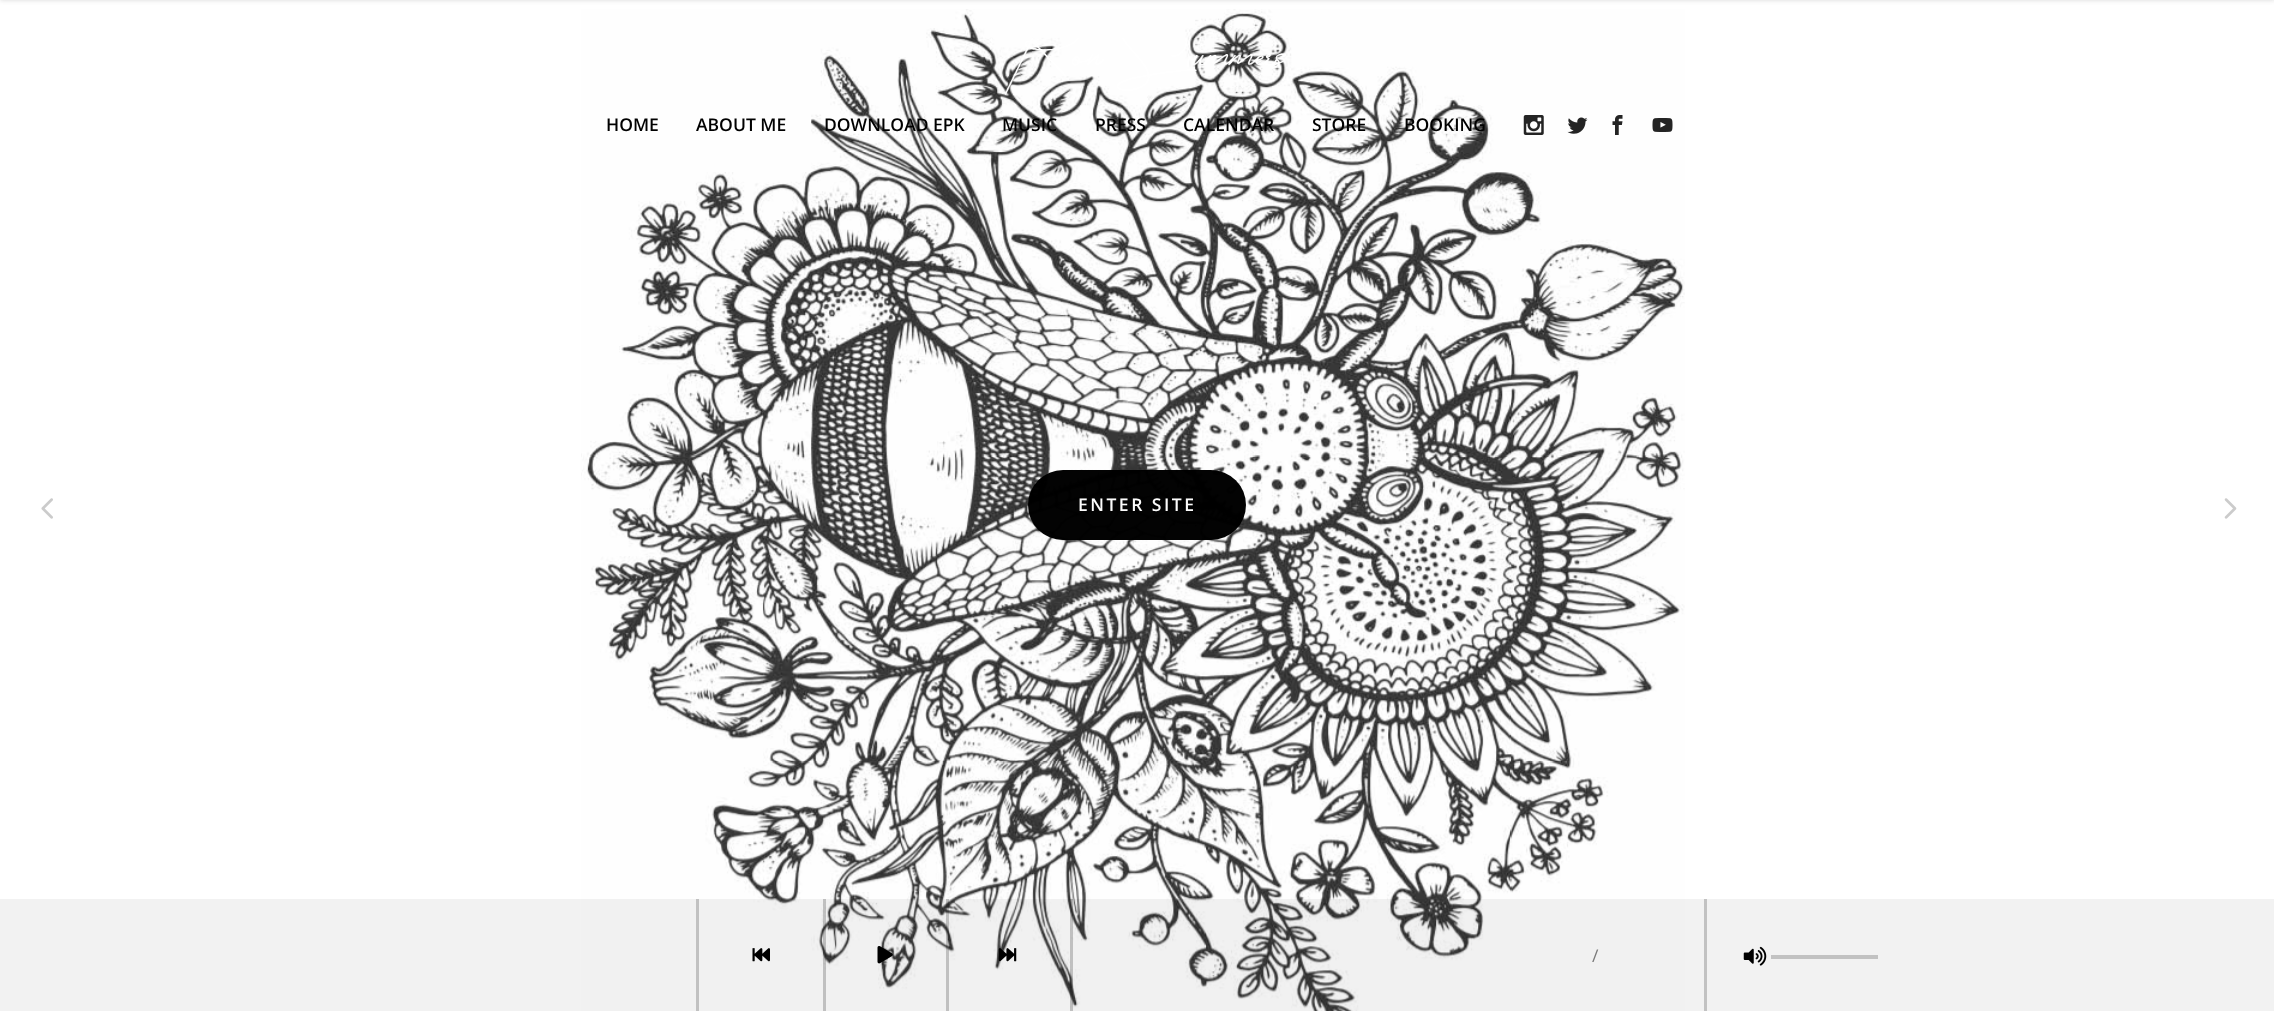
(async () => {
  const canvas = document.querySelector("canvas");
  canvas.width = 2274;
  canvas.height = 1011;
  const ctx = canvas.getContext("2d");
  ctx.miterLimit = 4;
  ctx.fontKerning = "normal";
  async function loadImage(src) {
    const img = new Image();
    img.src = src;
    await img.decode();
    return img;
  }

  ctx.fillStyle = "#ffffff";
  ctx.fillRect(0, 0, 2274, 1011);
  ctx.fillStyle = "rgba(57, 57, 57, 0.2)";
  ctx.filter = "blur(2.5px)";
  ctx.beginPath();
  ctx.rect(0, -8, 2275, 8);
  ctx.fill();
  ctx.filter = "none";
  ctx.drawImage(await loadImage("img/7.png"), 581, 9, 1104, 1002);
  ctx.drawImage(await loadImage("img/1.png"), 990, 38, 295, 57);
  ctx.drawImage(await loadImage("img/2.png"), 1523, 115, 21, 20);
  ctx.drawImage(await loadImage("img/3.png"), 1567, 117, 21, 17);
  ctx.drawImage(await loadImage("img/4.png"), 1612, 115, 11, 20);
  ctx.drawImage(await loadImage("img/5.png"), 1652, 118, 21, 14);
  ctx.drawImage(await loadImage("img/6.png"), 41, 498, 12, 21);
  ctx.fillStyle = "rgba(0, 0, 0, 0.99)";
  ctx.beginPath();
  ctx.roundRect(1028, 470, 218, 70, 35);
  ctx.fill();
  ctx.drawImage(await loadImage("img/8.png"), 2224, 498, 13, 21);
  for (const [x, y, w, h, color] of [
    [0, 899, 2274, 112, "rgba(0, 0, 0, 0.05)"],
    [696, 899, 3, 112, "#c1c1c1"],
    [1070, 899, 3, 112, "rgba(0, 0, 0, 0.2)"],
    [823, 899, 3, 112, "rgba(0, 0, 0, 0.2)"],
  ]) {
    ctx.fillStyle = color;
    ctx.fillRect(x, y, w, h);
  }
  ctx.drawImage(await loadImage("img/9.png"), 752, 948, 18, 14);
  ctx.fillRect(946, 899, 3, 112);
  ctx.drawImage(await loadImage("img/10.png"), 877, 946, 16, 18);
  ctx.drawImage(await loadImage("img/11.png"), 998, 948, 19, 14);
  ctx.fillStyle = "#c2c2c2";
  ctx.fillRect(1704, 899, 3, 112);
  ctx.drawImage(await loadImage("img/12.png"), 1743, 946, 24, 20);
  ctx.fillRect(1771, 955, 107, 4);
  ctx.font = "600 17.5px Open Sans";
  ctx.fillStyle = "#000000";
  for (const [text, x, y] of [
    ["HOME", 606, 131],
    ["ABOUT ME", 696, 131],
    ["DOWNLOAD EPK", 824, 131],
    ["MUSIC", 1002, 131],
    ["PRESS", 1095, 131],
    ["CALENDAR", 1183, 131],
    ["STORE", 1312, 131],
    ["BOOKING", 1404, 131],
  ]) {
    ctx.fillText(text, x, y);
  }
  ctx.letterSpacing = "2.5px";
  ctx.fillStyle = "#fcfcfc";
  ctx.fillText("ENTER SITE", 1078, 511);
  ctx.letterSpacing = "0px";
  ctx.font = "17.5px Open Sans";
  ctx.fillStyle = "#797979";
  ctx.fillText("/", 1592, 962);
})();
